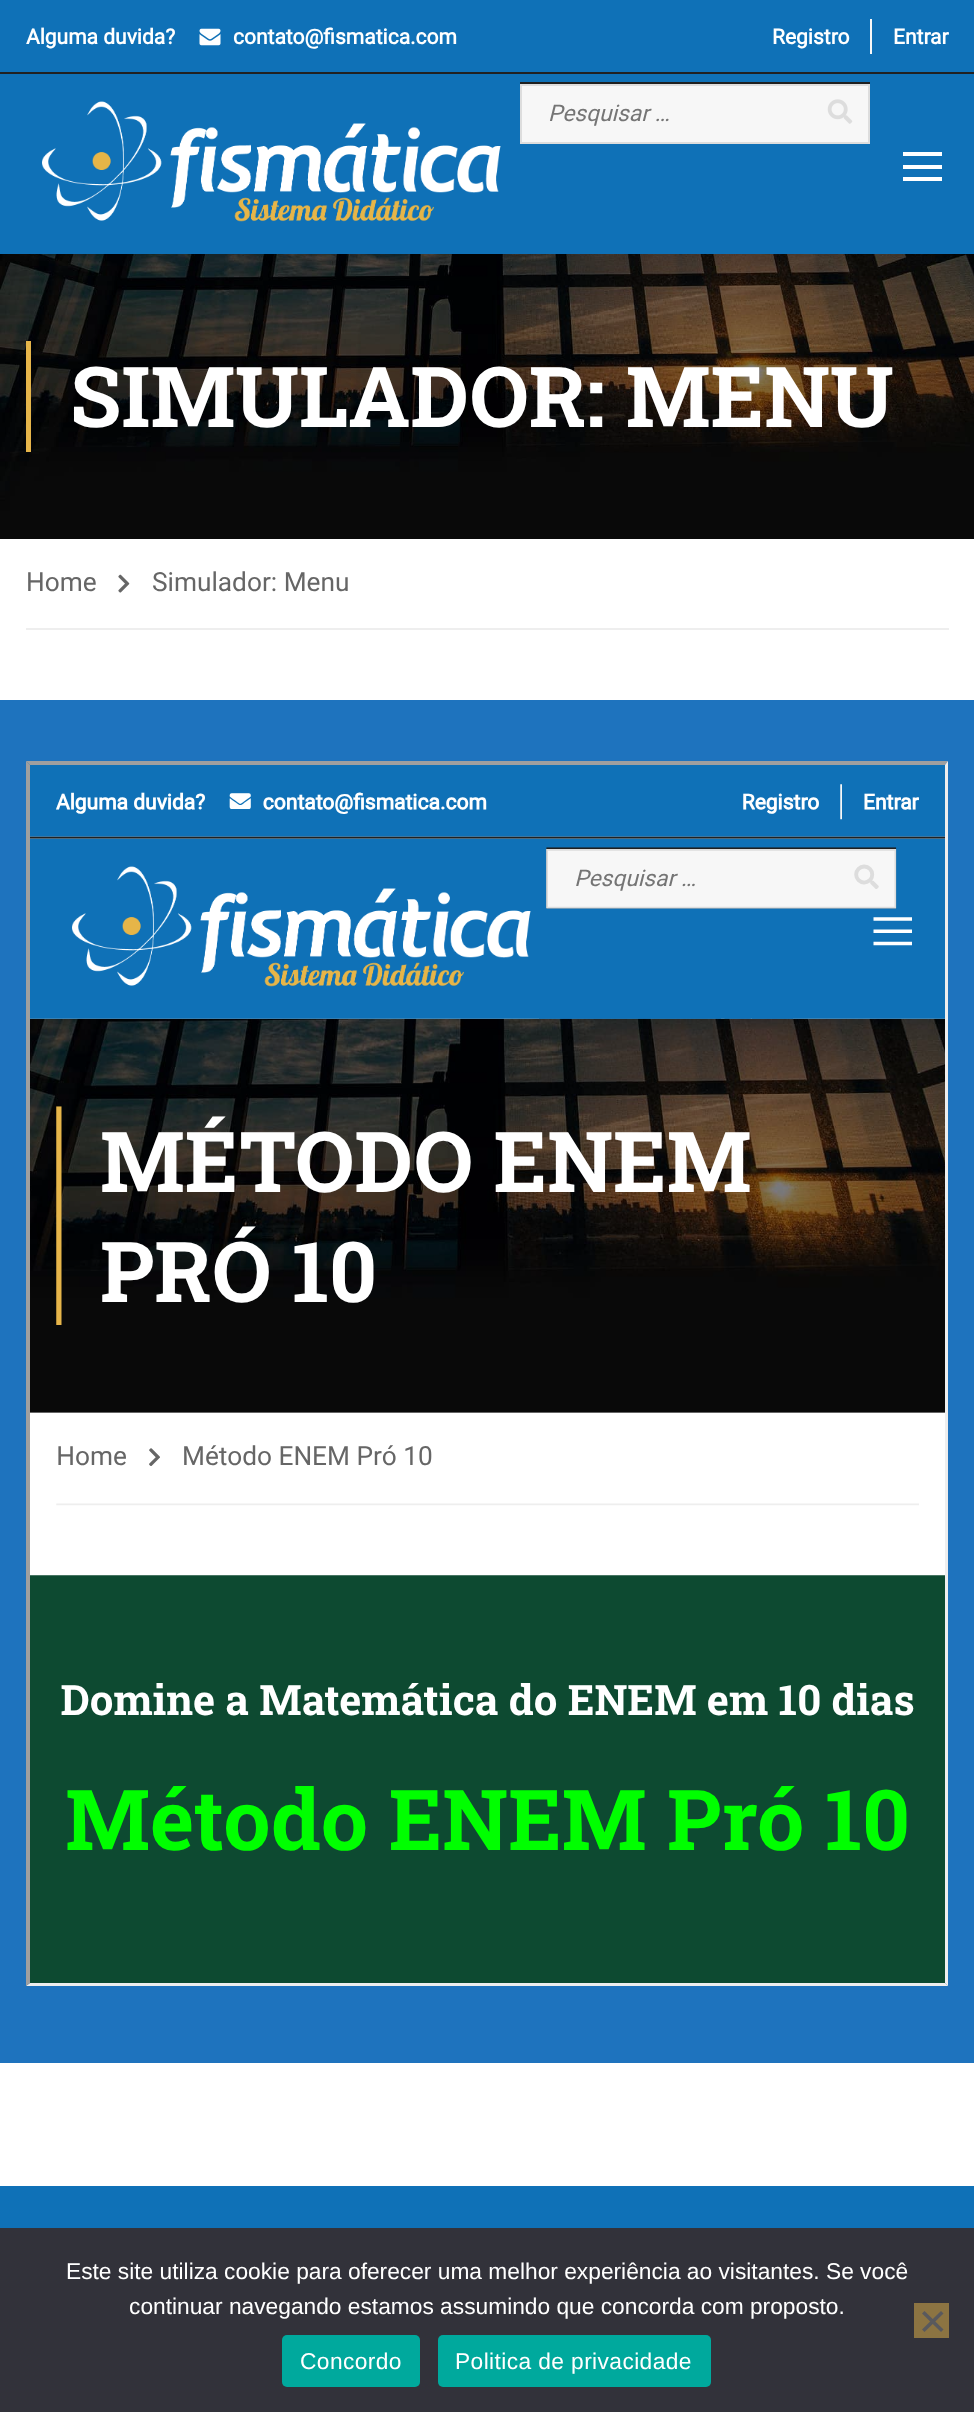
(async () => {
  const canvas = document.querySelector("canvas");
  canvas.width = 974;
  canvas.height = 2412;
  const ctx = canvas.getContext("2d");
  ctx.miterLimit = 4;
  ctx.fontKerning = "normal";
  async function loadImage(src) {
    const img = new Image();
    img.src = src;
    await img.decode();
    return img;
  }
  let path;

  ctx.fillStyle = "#ffffff";
  ctx.fillRect(0, 0, 974, 2412);
  ctx.fillStyle = "#0f71b7";
  ctx.fillRect(0, 0, 974, 254);
  ctx.drawImage(await loadImage("img/1.png"), 199, 28, 22, 18);
  ctx.fillStyle = "#f7f7f7";
  ctx.fillRect(870, 19, 2, 35);
  ctx.fillStyle = "#212121";
  ctx.fillRect(0, 72, 974, 2);
  ctx.drawImage(await loadImage("img/2.png"), 42, 101, 459, 121);
  ctx.fillStyle = "#1f1f1f";
  ctx.fillRect(520, 82, 350, 2);
  ctx.fillStyle = "#f7f7f7";
  ctx.beginPath();
  ctx.rect(521, 85, 348, 58);
  ctx.fill();
  ctx.strokeStyle = "#dddddd";
  ctx.lineWidth = 2;
  ctx.stroke();
  ctx.drawImage(await loadImage("img/3.png"), 827, 99, 26, 25);
  for (const [x, y, w, h, color] of [
    [903, 152, 39, 4, "#ffffff"],
    [903, 165, 39, 4, "#ffffff"],
    [903, 177, 39, 4, "#ffffff"],
  ]) {
    ctx.fillStyle = color;
    ctx.fillRect(x, y, w, h);
  }
  ctx.drawImage(await loadImage("img/4.png"), 0, 254, 974, 285);
  ctx.fillStyle = "#e6b54a";
  ctx.fillRect(26, 341, 5, 111);
  ctx.fillStyle = "#eeeeee";
  ctx.fillRect(26, 628, 923, 2);
  ctx.drawImage(await loadImage("img/5.png"), 118, 574, 12, 19);
  ctx.fillStyle = "#1e73be";
  ctx.fillRect(0, 700, 974, 1363);
  ctx.fillStyle = "#9f9f9f";
  path = new Path2D("M26 761H948L945 765H30Z");
  ctx.fill(path);
  ctx.fillStyle = "#eeeeee";
  path = new Path2D("M948 761V1986L945 1983V765Z");
  ctx.fill(path);
  path = new Path2D("M948 1986H26L30 1983H945Z");
  ctx.fill(path);
  ctx.fillStyle = "#9f9f9f";
  path = new Path2D("M26 1986V761L30 765V1983Z");
  ctx.fill(path);
  ctx.drawImage(await loadImage("img/6.png"), 30, 765, 915, 1218);
  for (const [x, y, w, h, color] of [
    [0, 2186, 974, 42, "#0f71b7"],
    [0, 2228, 974, 184, "#32323a"],
    [914, 2303, 35, 35, "#8c7442"],
  ]) {
    ctx.fillStyle = color;
    ctx.fillRect(x, y, w, h);
  }
  ctx.fillStyle = "#59595d";
  path = new Path2D("M941 2311L943.5 2313.5L924.5 2332L922 2329.5Z");
  ctx.fill(path);
  path = new Path2D("M922 2313.5L924.5 2311L943.5 2329.5L941 2332Z");
  ctx.fill(path);
  ctx.fillStyle = "#00a99d";
  ctx.beginPath();
  ctx.roundRect(282, 2335, 138, 52, 5);
  ctx.fill();
  ctx.beginPath();
  ctx.roundRect(438, 2335, 273, 52, 5);
  ctx.fill();
  ctx.font = "bold 21px Roboto";
  ctx.fillStyle = "#ffffff";
  for (const [text, x, y] of [
    ["Alguma duvida?", 26, 44],
    ["contato@fismatica.com", 233, 44],
    ["Registro", 772, 44],
    ["Entrar", 893, 44],
  ]) {
    ctx.fillText(text, x, y);
  }
  ctx.font = "italic 22.75px Roboto";
  ctx.fillStyle = "#757575";
  ctx.fillText("Pesquisar …", 548, 121);
  ctx.font = "bold 84px Roboto Slab";
  ctx.fillStyle = "#ffffff";
  ctx.fillText("SIMULADOR: MENU", 70, 427);
  ctx.font = "26.25px Roboto";
  ctx.fillStyle = "#666666";
  ctx.fillText("Home", 26, 591);
  ctx.fillText("Simulador: Menu", 152, 591);
  ctx.font = "22.75px Liberation Sans";
  ctx.fillStyle = "#ffffff";
  ctx.fillText("Este site utiliza cookie para oferecer uma melhor experiência ao visitantes. Se você", 66, 2279);
  ctx.fillText("continuar navegando estamos assumindo que concorda com proposto.", 129, 2314);
  ctx.letterSpacing = "0.4px";
  ctx.fillText("Concordo", 300, 2369);
  ctx.fillText("Politica de privacidade", 455, 2369);
})();
